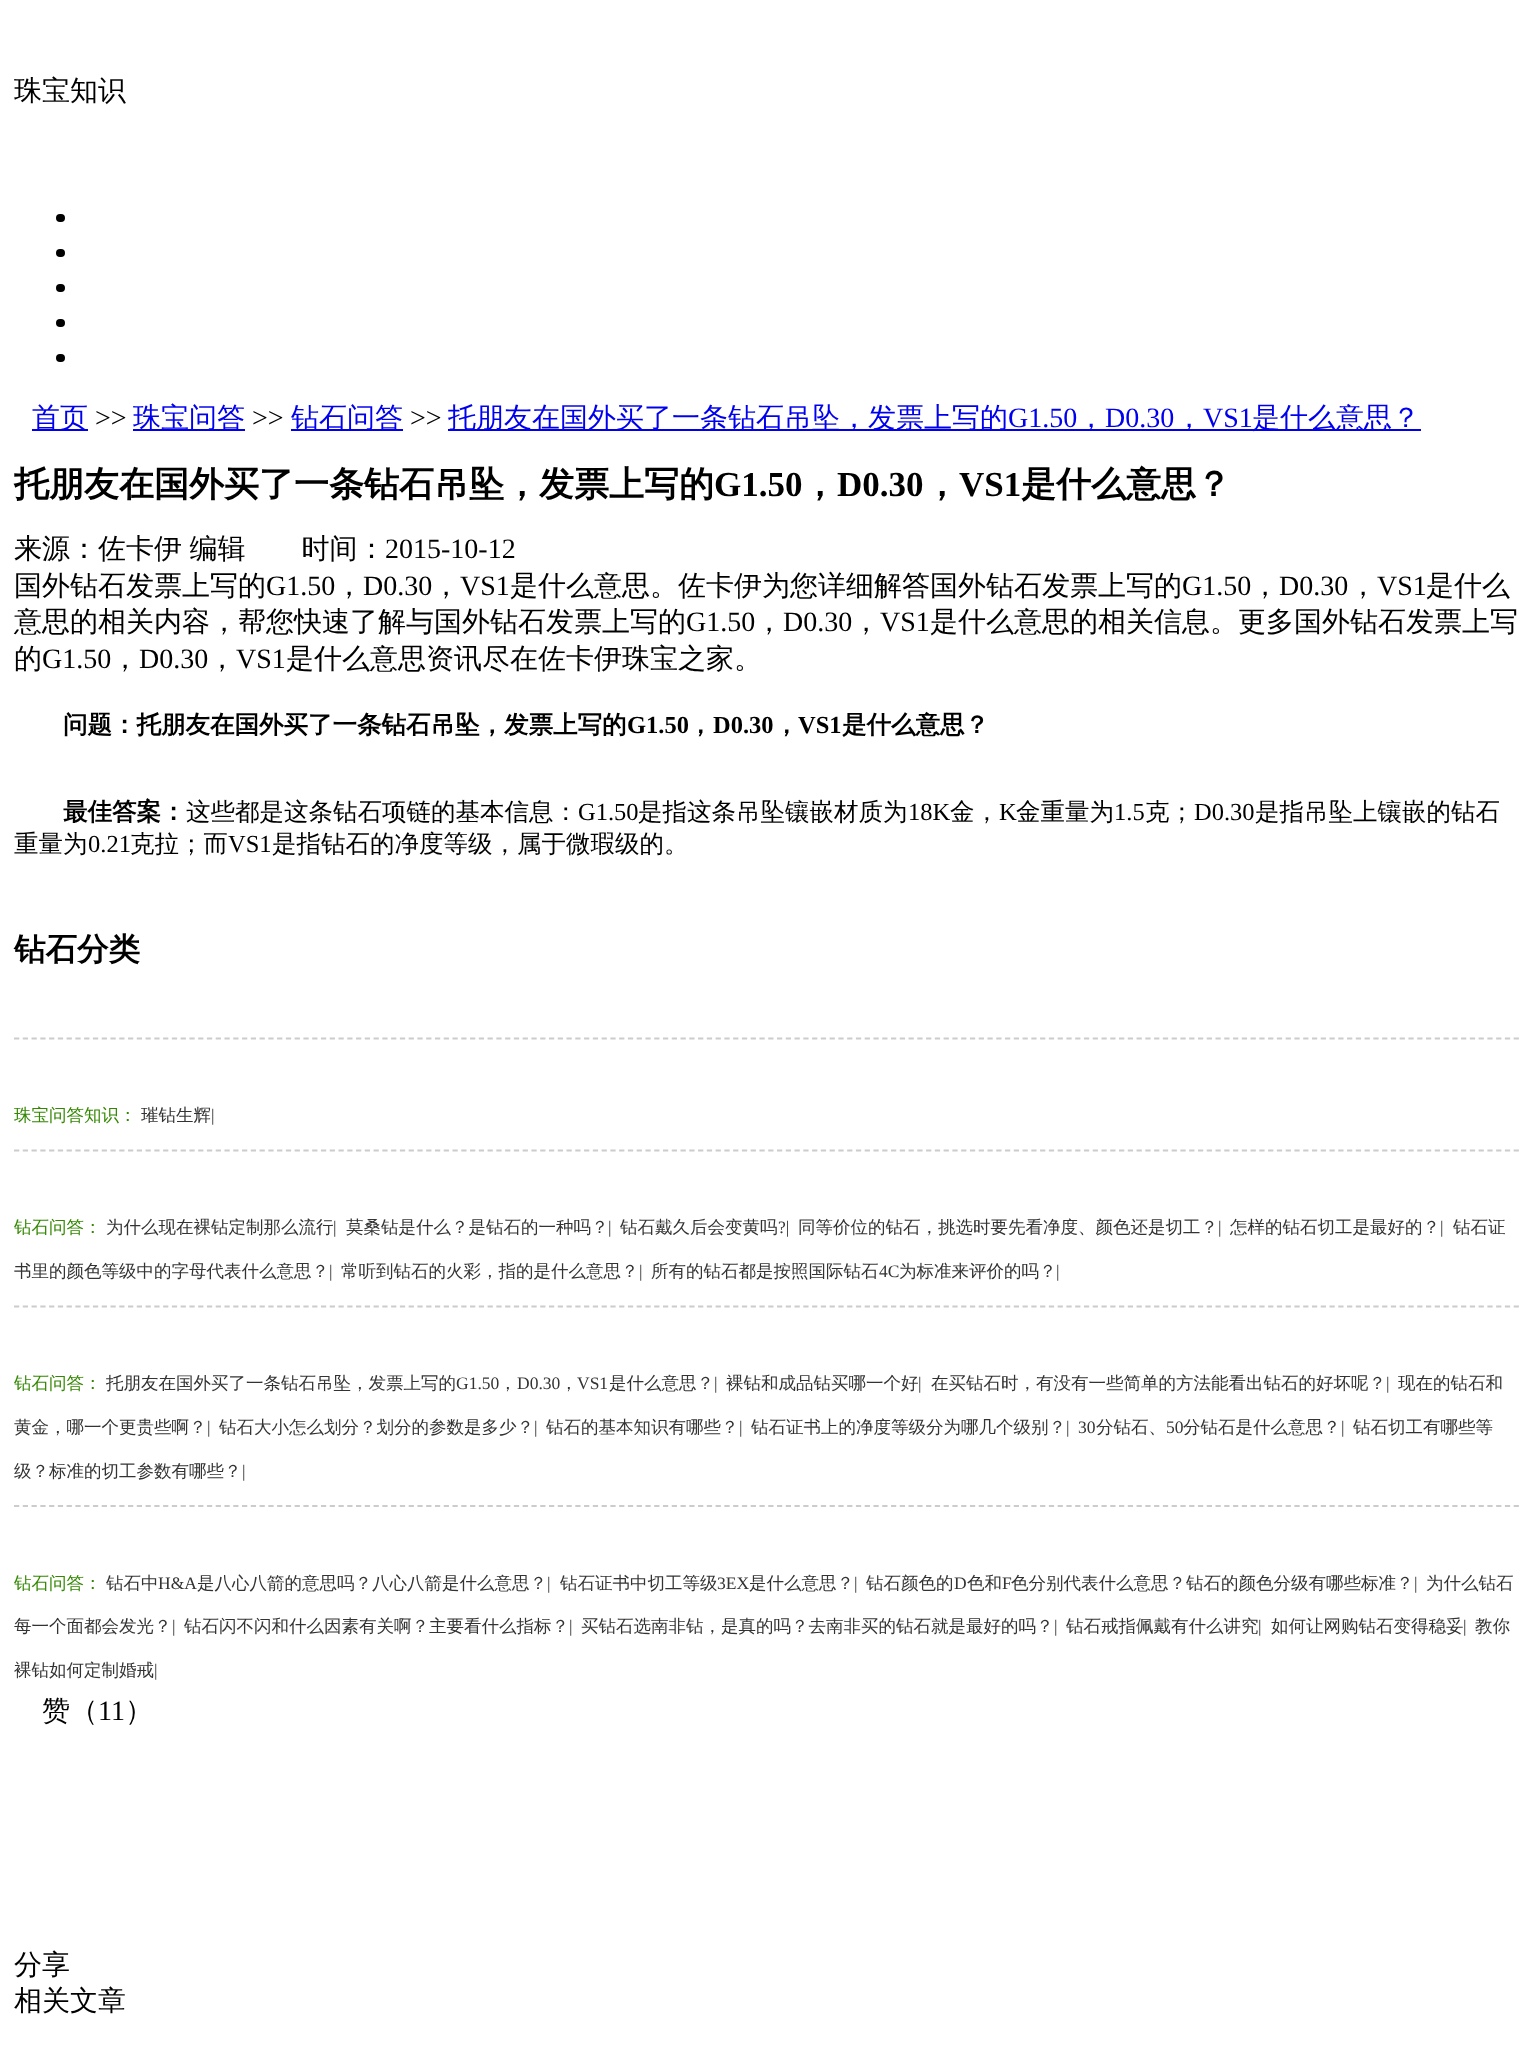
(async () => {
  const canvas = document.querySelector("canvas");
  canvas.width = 1533;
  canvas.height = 2070;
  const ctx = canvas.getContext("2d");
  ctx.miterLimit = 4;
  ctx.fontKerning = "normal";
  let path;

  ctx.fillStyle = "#ffffff";
  ctx.fillRect(0, 0, 1533, 2070);
  ctx.fillStyle = "#000000";
  ctx.beginPath();
  ctx.roundRect(56, 214, 9, 8, 4);
  ctx.fill();
  ctx.beginPath();
  ctx.roundRect(56, 249, 9, 8, 4);
  ctx.fill();
  ctx.beginPath();
  ctx.roundRect(56, 284, 9, 8, 4);
  ctx.fill();
  ctx.beginPath();
  ctx.roundRect(56, 319, 9, 8, 4);
  ctx.fill();
  ctx.beginPath();
  ctx.roundRect(56, 354, 9, 8, 4);
  ctx.fill();
  for (const [x, y, w, h, color] of [
    [32, 429, 56, 2, "#0000ee"],
    [133, 429, 112, 2, "#0000ee"],
    [291, 429, 112, 2, "#0000ee"],
    [448, 429, 973, 2, "#0000ee"],
  ]) {
    ctx.fillStyle = color;
    ctx.fillRect(x, y, w, h);
  }
  path = new Path2D("M14 1038.5H1519");
  ctx.strokeStyle = "#cccccc";
  ctx.lineWidth = 1.8;
  ctx.setLineDash([5.25, 3.52]);
  ctx.stroke(path);
  path = new Path2D("M14 1150.5H1519");
  ctx.stroke(path);
  path = new Path2D("M14 1306.5H1519");
  ctx.stroke(path);
  path = new Path2D("M14 1506H1519");
  ctx.stroke(path);
  ctx.font = "500 28px WenQuanYi Zen Hei";
  ctx.fillStyle = "#000000";
  ctx.fillText("珠宝知识", 14, 100);
  ctx.fillStyle = "#0000ee";
  ctx.fillText("首页", 32, 427);
  ctx.font = "28px Liberation Serif";
  ctx.fillStyle = "#000000";
  ctx.fillText(">>", 95, 427);
  ctx.font = "500 28px WenQuanYi Zen Hei";
  ctx.fillStyle = "#0000ee";
  ctx.fillText("珠宝问答", 133, 427);
  ctx.font = "28px Liberation Serif";
  ctx.fillStyle = "#000000";
  ctx.fillText(">>", 252, 427);
  ctx.font = "500 28px WenQuanYi Zen Hei";
  ctx.fillStyle = "#0000ee";
  ctx.fillText("钻石问答", 291, 427);
  ctx.font = "28px Liberation Serif";
  ctx.fillStyle = "#000000";
  ctx.fillText(">>", 410, 427);
  ctx.font = "500 28px WenQuanYi Zen Hei";
  ctx.fillStyle = "#0000ee";
  ctx.fillText("托朋友在国外买了一条钻石吊坠，发票上写的", 448, 427);
  ctx.font = "28px Liberation Serif";
  for (const [text, x, y] of [
    ["G1.50", 1008, 427],
    ["D0.30", 1105, 427],
    ["VS1", 1203, 427],
  ]) {
    ctx.fillText(text, x, y);
  }
  ctx.font = "500 28px WenQuanYi Zen Hei";
  for (const [text, x, y] of [
    ["是什么意思？", 1252, 427],
    ["，", 1077, 427],
    ["，", 1175, 427],
  ]) {
    ctx.fillText(text, x, y);
  }
  ctx.font = "bold 35px WenQuanYi Zen Hei";
  ctx.fillStyle = "#000000";
  ctx.fillText("托朋友在国外买了一条钻石吊坠，发票上写的", 14, 496);
  ctx.font = "bold 35px Liberation Serif";
  ctx.fillText("G1.50", 714, 496);
  ctx.font = "bold 35px WenQuanYi Zen Hei";
  ctx.fillText("，", 802, 496);
  ctx.font = "bold 35px Liberation Serif";
  ctx.fillText("D0.30", 837, 496);
  ctx.font = "bold 35px WenQuanYi Zen Hei";
  ctx.fillText("，", 924, 496);
  ctx.font = "bold 35px Liberation Serif";
  ctx.fillText("VS1", 959, 496);
  ctx.font = "bold 35px WenQuanYi Zen Hei";
  ctx.fillText("是什么意思？", 1021, 496);
  ctx.wordSpacing = "-1px";
  ctx.font = "500 28px WenQuanYi Zen Hei";
  ctx.fillText("来源：佐卡伊 编辑　　时间：", 14, 558);
  ctx.wordSpacing = "0px";
  ctx.font = "28px Liberation Serif";
  ctx.fillText("2015-10-12", 385, 558);
  ctx.font = "500 28px WenQuanYi Zen Hei";
  ctx.fillText("国外钻石发票上写的", 14, 595);
  ctx.font = "28px Liberation Serif";
  ctx.fillText("G1.50", 266, 595);
  ctx.font = "500 28px WenQuanYi Zen Hei";
  ctx.fillText("，", 335, 595);
  ctx.font = "28px Liberation Serif";
  ctx.fillText("D0.30", 363, 595);
  ctx.font = "500 28px WenQuanYi Zen Hei";
  ctx.fillText("，", 432, 595);
  ctx.font = "28px Liberation Serif";
  ctx.fillText("VS1", 460, 595);
  ctx.font = "500 28px WenQuanYi Zen Hei";
  ctx.fillText("是什么意思。佐卡伊为您详细解答国外钻石发票上写的", 510, 595);
  ctx.font = "28px Liberation Serif";
  ctx.fillText("G1.50", 1182, 595);
  ctx.font = "500 28px WenQuanYi Zen Hei";
  ctx.fillText("，", 1251, 595);
  ctx.font = "28px Liberation Serif";
  ctx.fillText("D0.30", 1279, 595);
  ctx.font = "500 28px WenQuanYi Zen Hei";
  ctx.fillText("，", 1349, 595);
  ctx.font = "28px Liberation Serif";
  ctx.fillText("VS1", 1377, 595);
  ctx.font = "500 28px WenQuanYi Zen Hei";
  ctx.fillText("是什么", 1426, 595);
  ctx.fillText("意思的相关内容，帮您快速了解与国外钻石发票上写的", 14, 631);
  ctx.font = "28px Liberation Serif";
  ctx.fillText("G1.50", 686, 631);
  ctx.font = "500 28px WenQuanYi Zen Hei";
  ctx.fillText("，", 755, 631);
  ctx.font = "28px Liberation Serif";
  ctx.fillText("D0.30", 783, 631);
  ctx.font = "500 28px WenQuanYi Zen Hei";
  ctx.fillText("，", 852, 631);
  ctx.font = "28px Liberation Serif";
  ctx.fillText("VS1", 880, 631);
  ctx.font = "500 28px WenQuanYi Zen Hei";
  ctx.fillText("是什么意思的相关信息。更多国外钻石发票上写", 930, 631);
  ctx.fillText("的", 14, 668);
  ctx.font = "28px Liberation Serif";
  ctx.fillText("G1.50", 42, 668);
  ctx.font = "500 28px WenQuanYi Zen Hei";
  ctx.fillText("，", 111, 668);
  ctx.font = "28px Liberation Serif";
  ctx.fillText("D0.30", 139, 668);
  ctx.font = "500 28px WenQuanYi Zen Hei";
  ctx.fillText("，", 208, 668);
  ctx.font = "28px Liberation Serif";
  ctx.fillText("VS1", 236, 668);
  ctx.font = "500 28px WenQuanYi Zen Hei";
  ctx.fillText("是什么意思资讯尽在佐卡伊珠宝之家。", 286, 668);
  ctx.font = "bold 24.5px WenQuanYi Zen Hei";
  ctx.fillText("问题：托朋友在国外买了一条钻石吊坠，发票上写的", 63, 733);
  ctx.font = "bold 24.5px Liberation Serif";
  ctx.fillText("G1.50", 627, 733);
  ctx.font = "bold 24.5px WenQuanYi Zen Hei";
  ctx.fillText("，", 688, 733);
  ctx.font = "bold 24.5px Liberation Serif";
  ctx.fillText("D0.30", 713, 733);
  ctx.font = "bold 24.5px WenQuanYi Zen Hei";
  ctx.fillText("，", 774, 733);
  ctx.font = "bold 24.5px Liberation Serif";
  ctx.fillText("VS1", 798, 733);
  ctx.font = "bold 24.5px WenQuanYi Zen Hei";
  ctx.fillText("是什么意思？", 842, 733);
  ctx.fillText("最佳答案：", 63, 820);
  ctx.font = "500 24.5px WenQuanYi Zen Hei";
  ctx.fillText("这些都是这条钻石项链的基本信息：", 186, 820);
  ctx.font = "24.5px Liberation Serif";
  ctx.fillText("G1.50", 578, 820);
  ctx.font = "500 24.5px WenQuanYi Zen Hei";
  ctx.fillText("是指这条吊坠镶嵌材质为", 638, 820);
  ctx.font = "24.5px Liberation Serif";
  ctx.fillText("18K", 908, 820);
  ctx.font = "500 24.5px WenQuanYi Zen Hei";
  ctx.fillText("金，", 950, 820);
  ctx.font = "24.5px Liberation Serif";
  ctx.fillText("K", 999, 820);
  ctx.font = "500 24.5px WenQuanYi Zen Hei";
  ctx.fillText("金重量为", 1016, 820);
  ctx.font = "24.5px Liberation Serif";
  ctx.fillText("1.5", 1114, 820);
  ctx.font = "500 24.5px WenQuanYi Zen Hei";
  ctx.fillText("克；", 1145, 820);
  ctx.font = "24.5px Liberation Serif";
  ctx.fillText("D0.30", 1194, 820);
  ctx.font = "500 24.5px WenQuanYi Zen Hei";
  ctx.fillText("是指吊坠上镶嵌的钻石", 1255, 820);
  ctx.fillText("重量为", 14, 852);
  ctx.font = "24.5px Liberation Serif";
  ctx.fillText("0.21", 88, 852);
  ctx.font = "500 24.5px WenQuanYi Zen Hei";
  ctx.fillText("克拉；而", 130, 852);
  ctx.font = "24.5px Liberation Serif";
  ctx.fillText("VS1", 228, 852);
  ctx.font = "500 24.5px WenQuanYi Zen Hei";
  ctx.fillText("是指钻石的净度等级，属于微瑕级的。", 272, 852);
  ctx.font = "bold 31.5px WenQuanYi Zen Hei";
  ctx.fillText("钻石分类", 14, 960);
  ctx.font = "500 17.5px WenQuanYi Zen Hei";
  ctx.fillStyle = "#338800";
  ctx.fillText("珠宝问答知识：", 14, 1121);
  ctx.fillStyle = "#333333";
  ctx.fillText("璀钻生辉", 141, 1121);
  ctx.font = "17.5px Liberation Serif";
  ctx.fillText("|", 211, 1121);
  ctx.font = "500 17.5px WenQuanYi Zen Hei";
  ctx.fillStyle = "#338800";
  ctx.fillText("钻石问答：", 14, 1233);
  ctx.fillStyle = "#333333";
  ctx.fillText("为什么现在裸钻定制那么流行", 106, 1233);
  ctx.font = "17.5px Liberation Serif";
  ctx.fillText("|", 333, 1233);
  ctx.font = "500 17.5px WenQuanYi Zen Hei";
  ctx.fillText("莫桑钻是什么？是钻石的一种吗？", 346, 1233);
  ctx.font = "17.5px Liberation Serif";
  ctx.fillText("|", 608, 1233);
  ctx.font = "500 17.5px WenQuanYi Zen Hei";
  ctx.fillText("钻石戴久后会变黄吗", 620, 1233);
  ctx.font = "17.5px Liberation Serif";
  ctx.fillText("?|", 778, 1233);
  ctx.font = "500 17.5px WenQuanYi Zen Hei";
  ctx.fillText("同等价位的钻石，挑选时要先看净度、颜色还是切工？", 798, 1233);
  ctx.font = "17.5px Liberation Serif";
  ctx.fillText("|", 1218, 1233);
  ctx.font = "500 17.5px WenQuanYi Zen Hei";
  ctx.fillText("怎样的钻石切工是最好的？", 1230, 1233);
  ctx.font = "17.5px Liberation Serif";
  ctx.fillText("|", 1440, 1233);
  ctx.font = "500 17.5px WenQuanYi Zen Hei";
  ctx.fillText("钻石证", 1453, 1233);
  ctx.fillText("书里的颜色等级中的字母代表什么意思？", 14, 1277);
  ctx.font = "17.5px Liberation Serif";
  ctx.fillText("|", 329, 1277);
  ctx.font = "500 17.5px WenQuanYi Zen Hei";
  ctx.fillText("常听到钻石的火彩，指的是什么意思？", 341, 1277);
  ctx.font = "17.5px Liberation Serif";
  ctx.fillText("|", 639, 1277);
  ctx.font = "500 17.5px WenQuanYi Zen Hei";
  ctx.fillText("所有的钻石都是按照国际钻石", 651, 1277);
  ctx.font = "17.5px Liberation Serif";
  ctx.fillText("4C", 879, 1277);
  ctx.font = "500 17.5px WenQuanYi Zen Hei";
  ctx.fillText("为标准来评价的吗？", 899, 1277);
  ctx.font = "17.5px Liberation Serif";
  ctx.fillText("|", 1056, 1277);
  ctx.font = "500 17.5px WenQuanYi Zen Hei";
  ctx.fillStyle = "#338800";
  ctx.fillText("钻石问答：", 14, 1389);
  ctx.fillStyle = "#333333";
  ctx.fillText("托朋友在国外买了一条钻石吊坠，发票上写的", 106, 1389);
  ctx.font = "17.5px Liberation Serif";
  ctx.fillText("G1.50", 456, 1389);
  ctx.font = "500 17.5px WenQuanYi Zen Hei";
  ctx.fillText("，", 499, 1389);
  ctx.font = "17.5px Liberation Serif";
  ctx.fillText("D0.30", 517, 1389);
  ctx.font = "500 17.5px WenQuanYi Zen Hei";
  ctx.fillText("，", 560, 1389);
  ctx.font = "17.5px Liberation Serif";
  ctx.fillText("VS1", 577, 1389);
  ctx.font = "500 17.5px WenQuanYi Zen Hei";
  ctx.fillText("是什么意思？", 609, 1389);
  ctx.font = "17.5px Liberation Serif";
  ctx.fillText("|", 714, 1389);
  ctx.font = "500 17.5px WenQuanYi Zen Hei";
  ctx.fillText("裸钻和成品钻买哪一个好", 726, 1389);
  ctx.font = "17.5px Liberation Serif";
  ctx.fillText("|", 918, 1389);
  ctx.font = "500 17.5px WenQuanYi Zen Hei";
  ctx.fillText("在买钻石时，有没有一些简单的方法能看出钻石的好坏呢？", 931, 1389);
  ctx.font = "17.5px Liberation Serif";
  ctx.fillText("|", 1386, 1389);
  ctx.font = "500 17.5px WenQuanYi Zen Hei";
  ctx.fillText("现在的钻石和", 1398, 1389);
  ctx.fillText("黄金，哪一个更贵些啊？", 14, 1433);
  ctx.font = "17.5px Liberation Serif";
  ctx.fillText("|", 207, 1433);
  ctx.font = "500 17.5px WenQuanYi Zen Hei";
  ctx.fillText("钻石大小怎么划分？划分的参数是多少？", 219, 1433);
  ctx.font = "17.5px Liberation Serif";
  ctx.fillText("|", 534, 1433);
  ctx.font = "500 17.5px WenQuanYi Zen Hei";
  ctx.fillText("钻石的基本知识有哪些？", 546, 1433);
  ctx.font = "17.5px Liberation Serif";
  ctx.fillText("|", 739, 1433);
  ctx.font = "500 17.5px WenQuanYi Zen Hei";
  ctx.fillText("钻石证书上的净度等级分为哪几个级别？", 751, 1433);
  ctx.font = "17.5px Liberation Serif";
  ctx.fillText("|", 1066, 1433);
  ctx.fillText("30", 1078, 1433);
  ctx.font = "500 17.5px WenQuanYi Zen Hei";
  ctx.fillText("分钻石、", 1096, 1433);
  ctx.font = "17.5px Liberation Serif";
  ctx.fillText("50", 1166, 1433);
  ctx.font = "500 17.5px WenQuanYi Zen Hei";
  ctx.fillText("分钻石是什么意思？", 1183, 1433);
  ctx.font = "17.5px Liberation Serif";
  ctx.fillText("|", 1341, 1433);
  ctx.font = "500 17.5px WenQuanYi Zen Hei";
  ctx.fillText("钻石切工有哪些等", 1353, 1433);
  ctx.fillText("级？标准的切工参数有哪些？", 14, 1477);
  ctx.font = "17.5px Liberation Serif";
  ctx.fillText("|", 242, 1477);
  ctx.font = "500 17.5px WenQuanYi Zen Hei";
  ctx.fillStyle = "#338800";
  ctx.fillText("钻石问答：", 14, 1589);
  ctx.fillStyle = "#333333";
  ctx.fillText("钻石中", 106, 1589);
  ctx.font = "17.5px Liberation Serif";
  ctx.fillText("H&A", 158, 1589);
  ctx.font = "500 17.5px WenQuanYi Zen Hei";
  ctx.fillText("是八心八箭的意思吗？八心八箭是什么意思？", 197, 1589);
  ctx.font = "17.5px Liberation Serif";
  ctx.fillText("|", 547, 1589);
  ctx.font = "500 17.5px WenQuanYi Zen Hei";
  ctx.fillText("钻石证书中切工等级", 560, 1589);
  ctx.font = "17.5px Liberation Serif";
  ctx.fillText("3EX", 717, 1589);
  ctx.font = "500 17.5px WenQuanYi Zen Hei";
  ctx.fillText("是什么意思？", 749, 1589);
  ctx.font = "17.5px Liberation Serif";
  ctx.fillText("|", 854, 1589);
  ctx.font = "500 17.5px WenQuanYi Zen Hei";
  ctx.fillText("钻石颜色的", 866, 1589);
  ctx.font = "17.5px Liberation Serif";
  ctx.fillText("D", 954, 1589);
  ctx.font = "500 17.5px WenQuanYi Zen Hei";
  ctx.fillText("色和", 967, 1589);
  ctx.font = "17.5px Liberation Serif";
  ctx.fillText("F", 1002, 1589);
  ctx.font = "500 17.5px WenQuanYi Zen Hei";
  ctx.fillText("色分别代表什么意思？钻石的颜色分级有哪些标准？", 1011, 1589);
  ctx.font = "17.5px Liberation Serif";
  ctx.fillText("|", 1414, 1589);
  ctx.font = "500 17.5px WenQuanYi Zen Hei";
  ctx.fillText("为什么钻石", 1426, 1589);
  ctx.fillText("每一个面都会发光？", 14, 1632);
  ctx.font = "17.5px Liberation Serif";
  ctx.fillText("|", 172, 1632);
  ctx.font = "500 17.5px WenQuanYi Zen Hei";
  ctx.fillText("钻石闪不闪和什么因素有关啊？主要看什么指标？", 184, 1632);
  ctx.font = "17.5px Liberation Serif";
  ctx.fillText("|", 569, 1632);
  ctx.font = "500 17.5px WenQuanYi Zen Hei";
  ctx.fillText("买钻石选南非钻，是真的吗？去南非买的钻石就是最好的吗？", 581, 1632);
  ctx.font = "17.5px Liberation Serif";
  ctx.fillText("|", 1054, 1632);
  ctx.font = "500 17.5px WenQuanYi Zen Hei";
  ctx.fillText("钻石戒指佩戴有什么讲究", 1066, 1632);
  ctx.font = "17.5px Liberation Serif";
  ctx.fillText("|", 1258, 1632);
  ctx.font = "500 17.5px WenQuanYi Zen Hei";
  ctx.fillText("如何让网购钻石变得稳妥", 1271, 1632);
  ctx.font = "17.5px Liberation Serif";
  ctx.fillText("|", 1463, 1632);
  ctx.font = "500 17.5px WenQuanYi Zen Hei";
  ctx.fillText("教你", 1475, 1632);
  ctx.fillText("裸钻如何定制婚戒", 14, 1676);
  ctx.font = "17.5px Liberation Serif";
  ctx.fillText("|", 154, 1676);
  ctx.font = "500 28px WenQuanYi Zen Hei";
  ctx.fillStyle = "#000000";
  ctx.fillText("赞（", 42, 1720);
  ctx.font = "28px Liberation Serif";
  ctx.fillText("11", 98, 1720);
  ctx.font = "500 28px WenQuanYi Zen Hei";
  for (const [text, x, y] of [
    ["）", 125, 1720],
    ["分享", 14, 1974],
    ["相关文章", 14, 2010],
  ]) {
    ctx.fillText(text, x, y);
  }
})();
